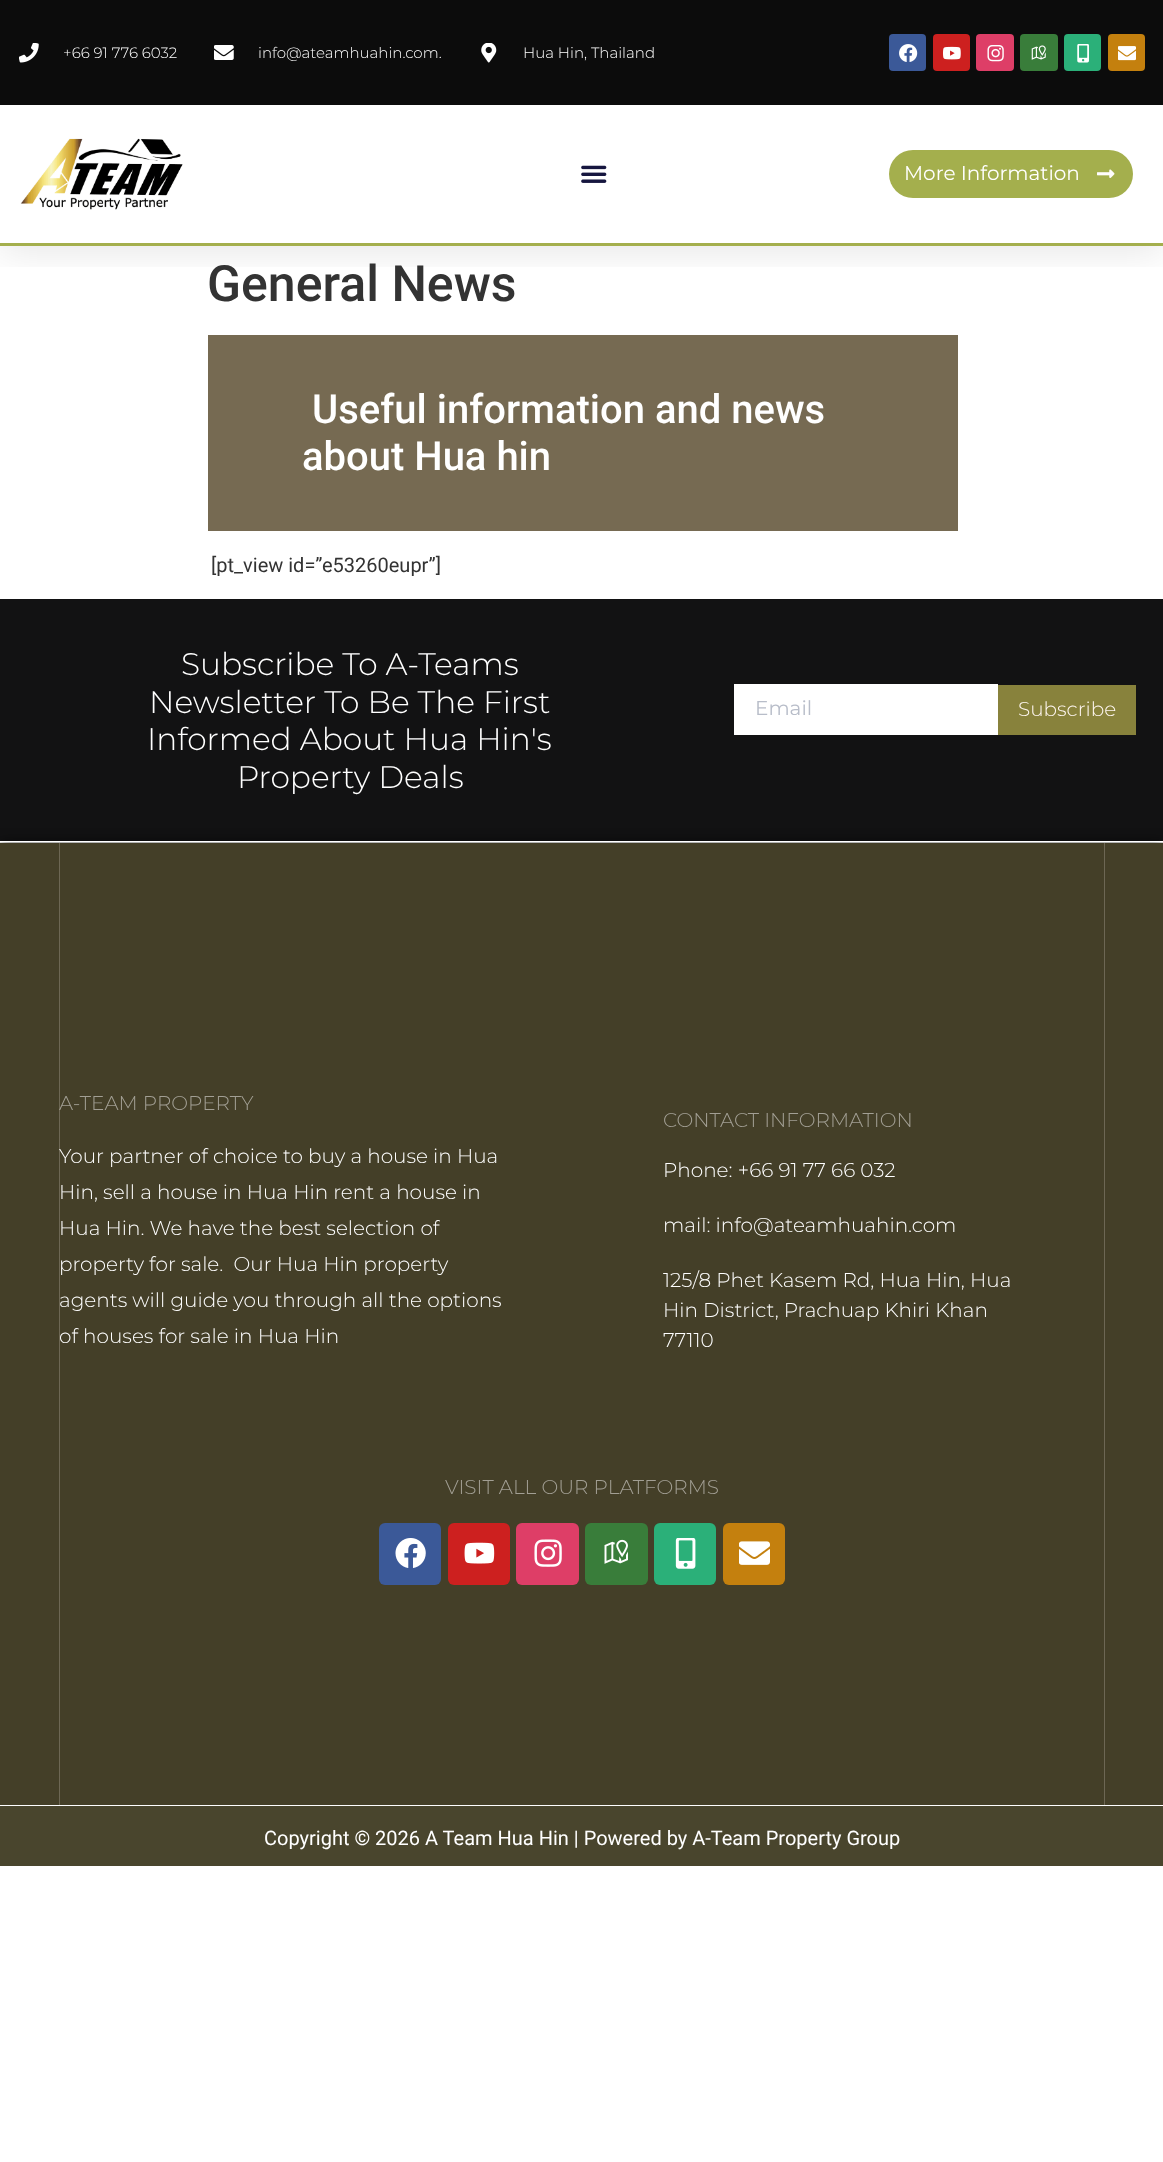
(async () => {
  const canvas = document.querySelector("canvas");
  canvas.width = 1163;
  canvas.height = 2162;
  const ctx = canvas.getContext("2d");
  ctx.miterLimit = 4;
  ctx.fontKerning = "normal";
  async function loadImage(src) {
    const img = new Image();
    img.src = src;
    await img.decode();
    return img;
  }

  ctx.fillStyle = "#ffffff";
  ctx.fillRect(0, 0, 1163, 2162);
  ctx.save();
  ctx.beginPath();
  ctx.rect(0, 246, 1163, 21);
  ctx.clip();
  ctx.fillStyle = "rgba(0, 0, 0, 0.1)";
  ctx.filter = "blur(19px)";
  ctx.beginPath();
  ctx.rect(0, 6, 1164, 245);
  ctx.fill();
  ctx.filter = "none";
  ctx.restore();
  ctx.fillStyle = "#a4af4d";
  ctx.fillRect(0, 243, 1163, 3);
  ctx.fillStyle = "#0c0c0c";
  ctx.fillRect(0, 0, 1163, 105);
  ctx.drawImage(await loadImage("img/1.png"), 19, 43, 20, 20);
  ctx.drawImage(await loadImage("img/2.png"), 214, 45, 20, 15);
  ctx.drawImage(await loadImage("img/3.png"), 481, 43, 16, 20);
  ctx.fillStyle = "#3b5998";
  ctx.beginPath();
  ctx.roundRect(889, 34, 37, 37, 4);
  ctx.fill();
  ctx.drawImage(await loadImage("img/4.png"), 899, 44, 19, 18);
  ctx.fillStyle = "#cd201f";
  ctx.beginPath();
  ctx.roundRect(933, 34, 37, 37, 4);
  ctx.fill();
  ctx.drawImage(await loadImage("img/5.png"), 943, 46, 18, 14);
  ctx.fillStyle = "#de3e67";
  ctx.beginPath();
  ctx.roundRect(976, 34, 38, 37, 4);
  ctx.fill();
  ctx.drawImage(await loadImage("img/6.png"), 987, 45, 17, 17);
  ctx.fillStyle = "#397d3a";
  ctx.beginPath();
  ctx.roundRect(1020, 34, 38, 37, 4);
  ctx.fill();
  ctx.drawImage(await loadImage("img/7.png"), 1031, 45, 15, 15);
  ctx.fillStyle = "#2bb079";
  ctx.beginPath();
  ctx.roundRect(1064, 34, 37, 37, 4);
  ctx.fill();
  ctx.drawImage(await loadImage("img/8.png"), 1077, 44, 12, 19);
  ctx.fillStyle = "#c4800e";
  ctx.beginPath();
  ctx.roundRect(1108, 34, 37, 37, 4);
  ctx.fill();
  ctx.drawImage(await loadImage("img/9.png"), 1118, 46, 18, 15);
  ctx.drawImage(await loadImage("img/10.png"), 20, 138, 163, 72);
  ctx.drawImage(await loadImage("img/11.png"), 581, 165, 26, 18);
  ctx.fillStyle = "#a4af4d";
  ctx.beginPath();
  ctx.roundRect(889, 150, 244, 48, 24);
  ctx.fill();
  ctx.drawImage(await loadImage("img/12.png"), 1097, 169, 18, 9);
  for (const [x, y, w, h, color] of [
    [208, 335, 750, 196, "#766a52"],
    [0, 599, 1163, 242, "#121213"],
    [734, 684, 264, 51, "#ffffff"],
    [998, 685, 138, 50, "#88823c"],
  ]) {
    ctx.fillStyle = color;
    ctx.fillRect(x, y, w, h);
  }
  ctx.fillStyle = "rgba(0, 0, 0, 0.5)";
  ctx.filter = "blur(6px)";
  ctx.beginPath();
  ctx.rect(0, 841, 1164, 964);
  ctx.fill();
  ctx.filter = "none";
  for (const [x, y, w, h, color] of [
    [0, 841, 1163, 1, "#ffffff"],
    [0, 843, 1163, 962, "#443f28"],
    [1104, 843, 1, 962, "#6d6754"],
    [59, 843, 1, 962, "#6d6754"],
  ]) {
    ctx.fillStyle = color;
    ctx.fillRect(x, y, w, h);
  }
  ctx.fillStyle = "#3b5998";
  ctx.beginPath();
  ctx.roundRect(379, 1523, 62, 62, 6);
  ctx.fill();
  ctx.drawImage(await loadImage("img/13.png"), 395, 1538, 31, 30);
  ctx.fillStyle = "#cd201f";
  ctx.beginPath();
  ctx.roundRect(448, 1523, 62, 62, 6);
  ctx.fill();
  ctx.drawImage(await loadImage("img/14.png"), 464, 1542, 31, 22);
  ctx.fillStyle = "#de3e67";
  ctx.beginPath();
  ctx.roundRect(516, 1523, 63, 62, 6);
  ctx.fill();
  ctx.drawImage(await loadImage("img/15.png"), 534, 1539, 28, 28);
  ctx.fillStyle = "#397d3a";
  ctx.beginPath();
  ctx.roundRect(585, 1523, 63, 62, 6);
  ctx.fill();
  ctx.drawImage(await loadImage("img/16.png"), 604, 1539, 24, 25);
  ctx.fillStyle = "#2bb079";
  ctx.beginPath();
  ctx.roundRect(654, 1523, 62, 62, 6);
  ctx.fill();
  ctx.drawImage(await loadImage("img/17.png"), 675, 1538, 21, 31);
  ctx.fillStyle = "#c4800e";
  ctx.beginPath();
  ctx.roundRect(723, 1523, 62, 62, 6);
  ctx.fill();
  ctx.drawImage(await loadImage("img/18.png"), 739, 1541, 31, 24);
  ctx.fillStyle = "#ffffff";
  ctx.fillRect(0, 1805, 1163, 1);
  ctx.fillStyle = "#49452d";
  ctx.fillRect(0, 1806, 1163, 60);
  ctx.font = "300 15px Montserrat";
  ctx.fillStyle = "#ffffff";
  for (const [text, x, y] of [
    ["+66 91 776 6032", 63, 58],
    ["info@ateamhuahin.com.", 258, 58],
    ["Hua Hin, Thailand", 523, 58],
  ]) {
    ctx.fillText(text, x, y);
  }
  ctx.font = "20px Montserrat";
  ctx.fillText("More Information", 904, 180);
  ctx.font = "500 50px Roboto";
  ctx.fillStyle = "#333333";
  ctx.fillText("General News", 207, 301);
  ctx.font = "500 40px Roboto";
  ctx.fillStyle = "#ffffff";
  ctx.fillText("Useful information and news", 312, 423);
  ctx.fillText("about Hua hin", 302, 470);
  ctx.font = "20px Roboto";
  ctx.fillStyle = "#333333";
  ctx.fillText("[pt_view id=”e53260eupr”]", 211, 572);
  ctx.font = "300 31.25px Montserrat";
  ctx.fillStyle = "#ffffff";
  for (const [text, x, y] of [
    ["Subscribe To A-Teams", 181, 675],
    ["Newsletter To Be The First", 149, 713],
    ["Informed About Hua Hin's", 147, 750],
    ["Property Deals", 237, 788],
  ]) {
    ctx.fillText(text, x, y);
  }
  ctx.font = "20px Montserrat";
  ctx.fillStyle = "#b8bdc9";
  ctx.fillText("Email", 755, 715);
  ctx.font = "300 20px Montserrat";
  ctx.fillStyle = "#fff7f1";
  ctx.fillText("Subscribe", 1018, 716);
  ctx.fillStyle = "#a29f94";
  ctx.fillText("A-TEAM PROPERTY", 59, 1110);
  ctx.fillStyle = "#ffffff";
  for (const [text, x, y] of [
    ["Your partner of choice to buy a house in Hua", 59, 1163],
    ["Hin, sell a house in Hua Hin rent a house in", 59, 1199],
    ["Hua Hin. We have the best selection of", 59, 1235],
    ["property for sale.  Our Hua Hin property", 59, 1271],
    ["agents will guide you through all the options", 59, 1307],
    ["of houses for sale in Hua Hin", 59, 1343],
  ]) {
    ctx.fillText(text, x, y);
  }
  ctx.fillStyle = "#a29f94";
  ctx.fillText("CONTACT INFORMATION", 663, 1127);
  ctx.fillStyle = "#ffffff";
  for (const [text, x, y] of [
    ["Phone: +66 91 77 66 032", 663, 1177],
    ["mail: info@ateamhuahin.com", 663, 1232],
    ["125/8 Phet Kasem Rd, Hua Hin, Hua", 663, 1287],
    ["Hin District, Prachuap Khiri Khan", 663, 1317],
    ["77110", 663, 1347],
  ]) {
    ctx.fillText(text, x, y);
  }
  ctx.fillStyle = "#a29f94";
  ctx.fillText("VISIT ALL OUR PLATFORMS", 445, 1494);
  ctx.font = "20px Roboto";
  ctx.fillStyle = "#ffffff";
  ctx.fillText("Copyright © 2026 A Team Hua Hin | Powered by A-Team Property Group", 264, 1845);
})();
